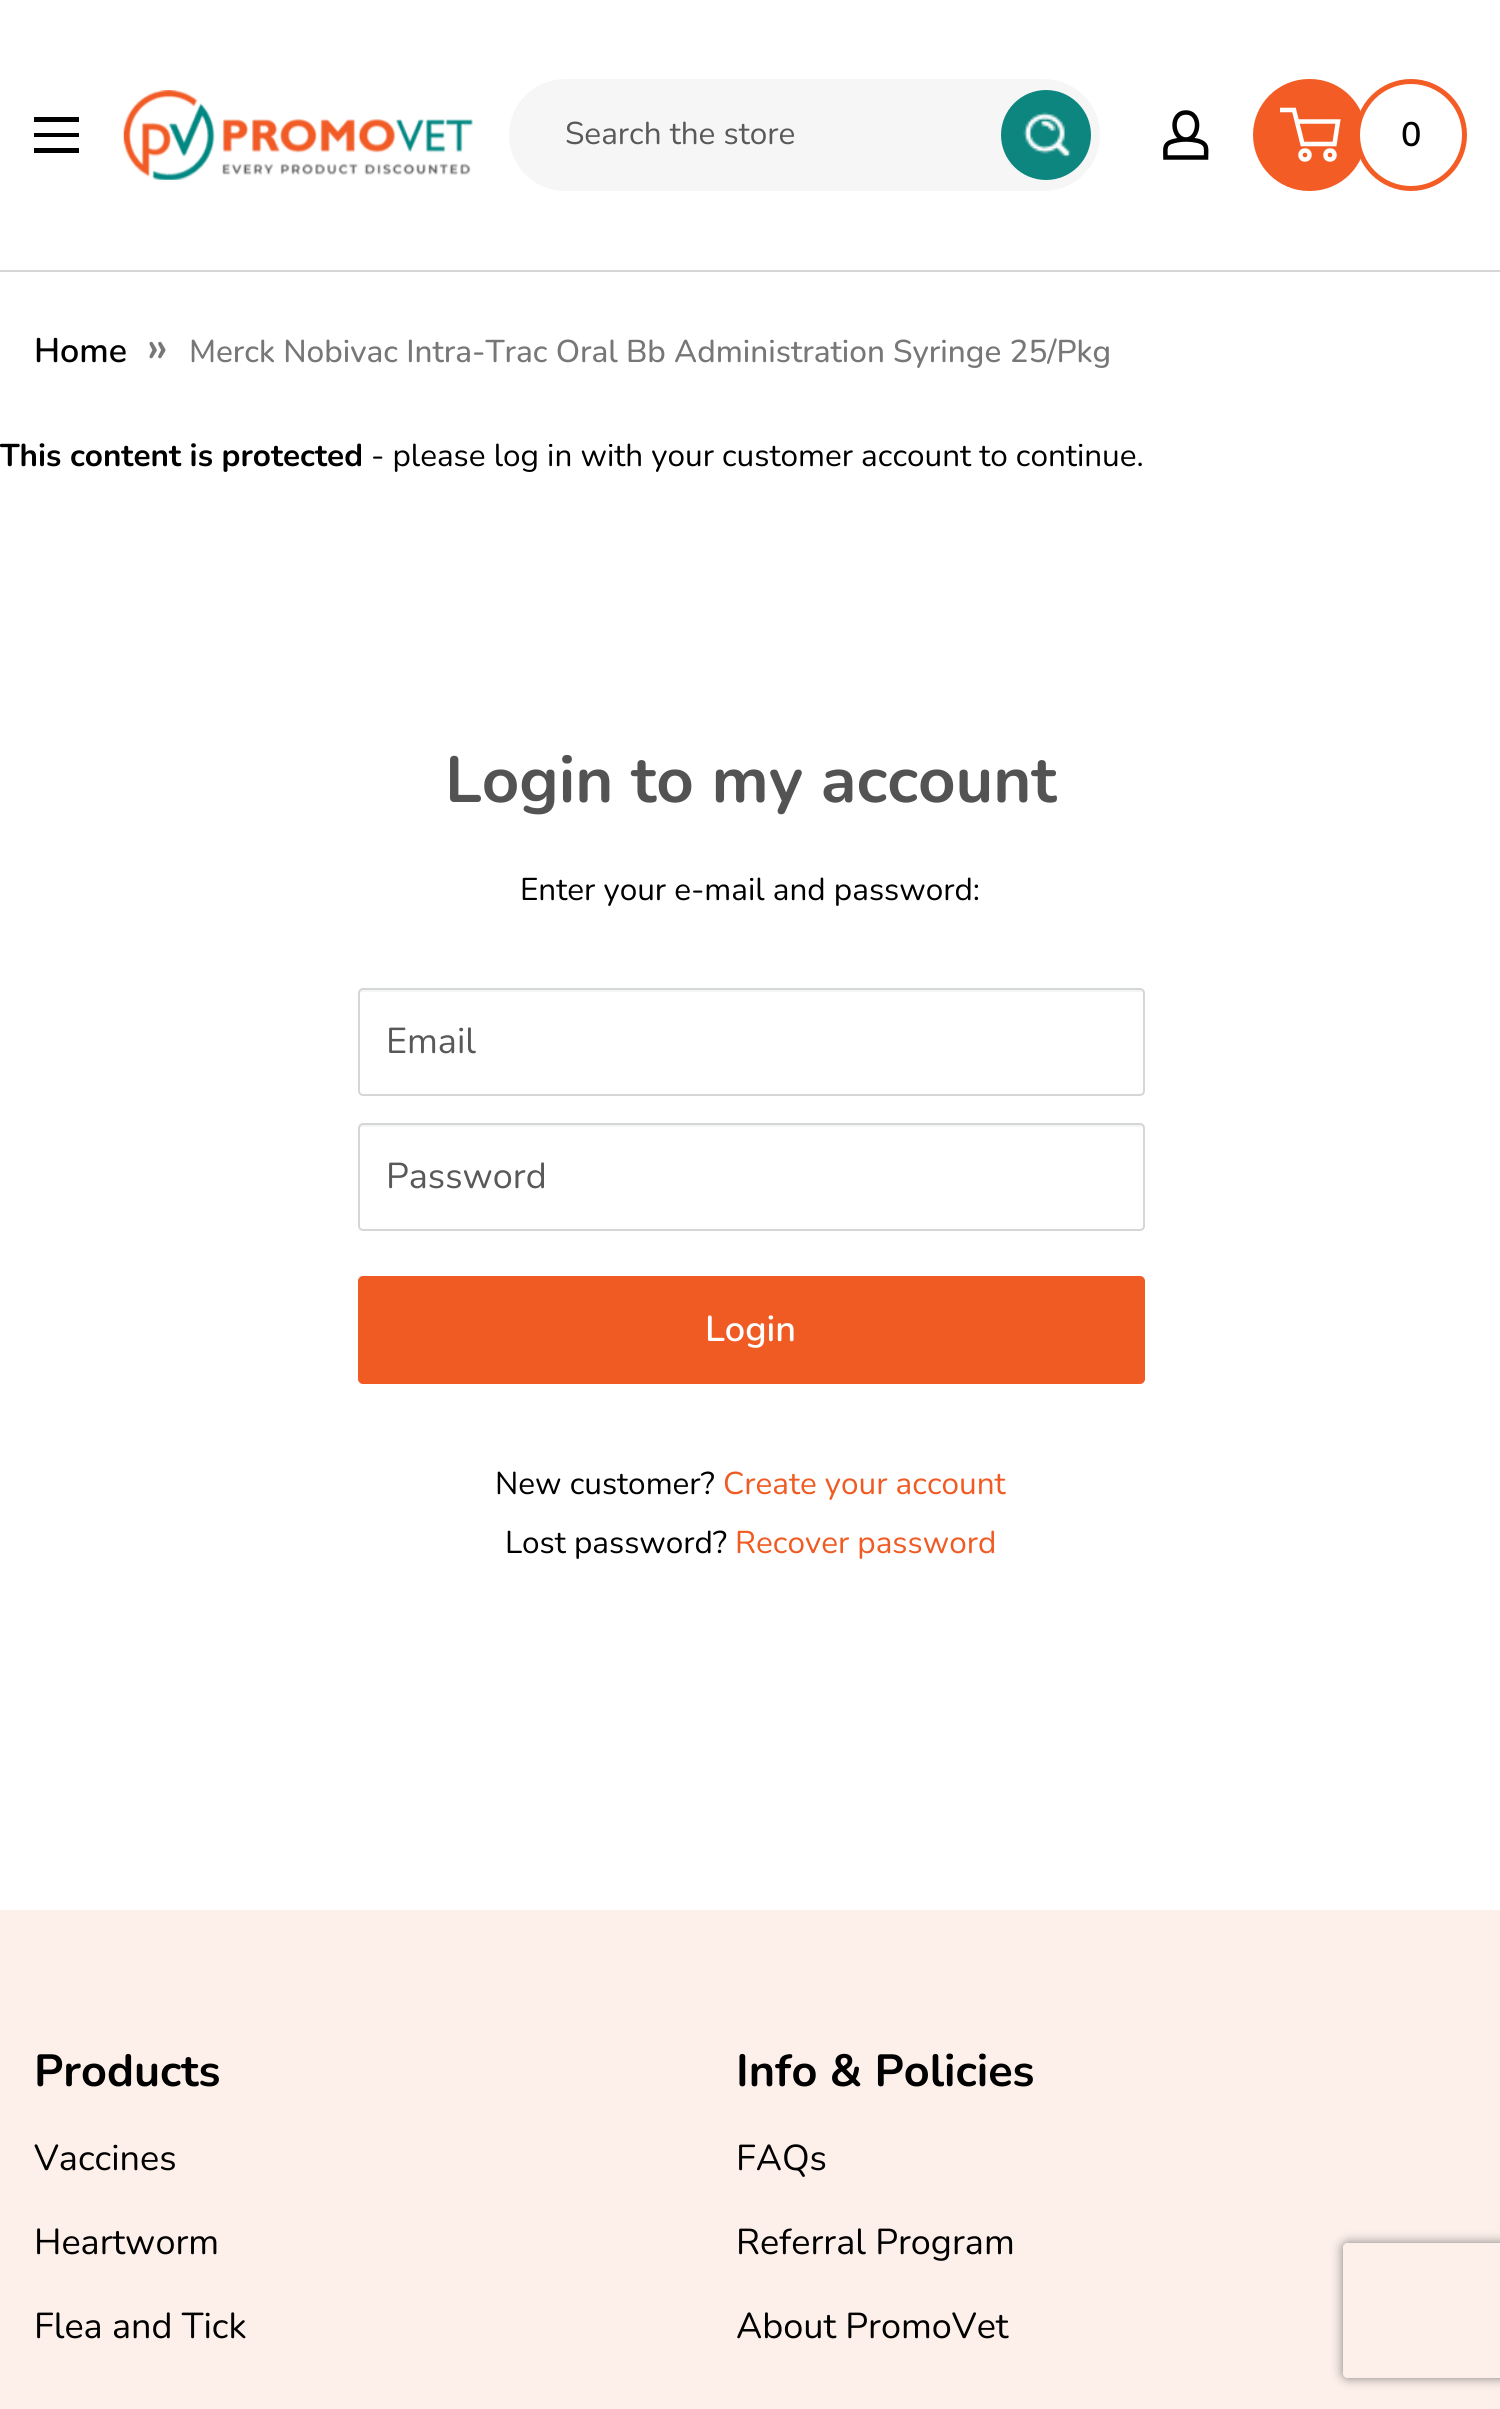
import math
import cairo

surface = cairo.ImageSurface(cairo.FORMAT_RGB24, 1500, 2409)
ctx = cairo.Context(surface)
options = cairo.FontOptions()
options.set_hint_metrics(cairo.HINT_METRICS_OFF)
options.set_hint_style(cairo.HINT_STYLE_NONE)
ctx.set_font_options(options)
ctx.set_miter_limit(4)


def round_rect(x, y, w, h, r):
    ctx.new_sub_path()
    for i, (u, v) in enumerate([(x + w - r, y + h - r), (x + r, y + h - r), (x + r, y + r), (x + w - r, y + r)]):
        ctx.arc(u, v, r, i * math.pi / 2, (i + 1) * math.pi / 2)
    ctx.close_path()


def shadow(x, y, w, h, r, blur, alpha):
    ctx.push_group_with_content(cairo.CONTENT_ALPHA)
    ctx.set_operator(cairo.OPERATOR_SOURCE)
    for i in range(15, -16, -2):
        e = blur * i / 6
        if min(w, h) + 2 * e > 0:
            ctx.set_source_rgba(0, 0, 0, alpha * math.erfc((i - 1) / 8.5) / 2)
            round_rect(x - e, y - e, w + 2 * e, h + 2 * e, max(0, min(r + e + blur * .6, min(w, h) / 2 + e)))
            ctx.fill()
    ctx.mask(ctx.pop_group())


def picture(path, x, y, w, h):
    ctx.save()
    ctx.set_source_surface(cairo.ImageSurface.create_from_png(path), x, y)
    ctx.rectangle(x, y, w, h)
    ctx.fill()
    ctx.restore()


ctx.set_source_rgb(1, 1, 1)
ctx.paint()
ctx.set_source_rgb(0.839, 0.839, 0.839)
ctx.rectangle(0, 270, 1500, 2)
ctx.fill()
ctx.set_source_rgb(0, 0, 0)
ctx.set_fill_rule(cairo.FILL_RULE_EVEN_ODD)
ctx.new_path()
ctx.move_to(34, 148)
ctx.line_to(79, 148)
ctx.line_to(79, 153)
ctx.line_to(34, 153)
ctx.close_path()
ctx.move_to(34, 117)
ctx.line_to(79, 117)
ctx.line_to(79, 122)
ctx.line_to(34, 122)
ctx.close_path()
ctx.move_to(34, 133)
ctx.line_to(79, 133)
ctx.line_to(79, 137)
ctx.line_to(34, 137)
ctx.close_path()
ctx.fill()
picture("img1.png", 123, 90, 350, 90)
ctx.set_source_rgb(0.961, 0.961, 0.961)
round_rect(509, 79, 591, 112, 56)
ctx.fill()
ctx.select_font_face("Nunito")
ctx.set_font_size(31.5)
ctx.set_source_rgb(0.349, 0.349, 0.349)
ctx.move_to(565, 144)
ctx.show_text("Search the store")
ctx.set_source_rgb(0.047, 0.525, 0.498)
ctx.new_path()
ctx.arc(1046, 135, 45, 0, 2 * math.pi)
ctx.fill()
picture("img2.png", 1023, 112, 48, 46)
ctx.new_path()
ctx.move_to(1186, 139.5)
ctx.curve_to(1190, 139.5, 1194, 140, 1198.5, 141)
ctx.curve_to(1208, 144, 1206, 149, 1206, 157.5)
ctx.line_to(1165.5, 157.5)
ctx.curve_to(1165.5, 148.5, 1163.5, 143.5, 1174, 141)
ctx.curve_to(1178, 140, 1182, 139.5, 1186, 139.5)
ctx.close_path()
ctx.move_to(1186, 139.5)
ctx.curve_to(1172, 139.5, 1169.5, 112.5, 1186, 112.5)
ctx.curve_to(1202, 112.5, 1199.5, 139.5, 1186, 139.5)
ctx.close_path()
ctx.set_source_rgb(0, 0, 0)
ctx.set_line_width(4.5)
ctx.stroke()
ctx.set_source_rgb(0.953, 0.365, 0.145)
round_rect(1253, 79, 113, 112, 56)
ctx.fill()
ctx.arc(1305, 155, 4.5, 0, 2 * math.pi)
ctx.set_source_rgb(1, 1, 1)
ctx.stroke()
ctx.arc(1330, 155, 4.5, 0, 2 * math.pi)
ctx.stroke()
ctx.new_path()
ctx.move_to(1296.5, 121.5)
ctx.line_to(1338, 121.5)
ctx.line_to(1334.5, 144)
ctx.line_to(1302.5, 144)
ctx.line_to(1294, 110)
ctx.line_to(1280, 110)
ctx.stroke()
ctx.arc(1411, 135, 53.5, 0, 2 * math.pi)
ctx.fill_preserve()
ctx.set_source_rgb(0.953, 0.365, 0.145)
ctx.set_line_width(5)
ctx.stroke()
ctx.select_font_face("Nunito SemiBold")
ctx.set_font_size(34)
ctx.set_source_rgb(0, 0, 0)
ctx.move_to(1401, 146)
ctx.show_text("0")
ctx.move_to(34, 362)
ctx.show_text("Home")
ctx.set_font_size(45)
ctx.set_source_rgb(0.467, 0.467, 0.467)
ctx.move_to(147, 362)
ctx.show_text("»")
ctx.select_font_face("Nunito Medium")
ctx.set_font_size(31.5)
ctx.move_to(189, 362)
ctx.show_text("Merck Nobivac Intra-Trac Oral Bb Administration Syringe 25/Pkg")
ctx.select_font_face("Nunito", cairo.FONT_SLANT_NORMAL, cairo.FONT_WEIGHT_BOLD)
ctx.set_source_rgb(0, 0, 0)
ctx.move_to(0, 466)
ctx.show_text("This content is protected")
ctx.select_font_face("Nunito")
ctx.move_to(371, 466)
ctx.show_text("- please log in with your customer account to continue.")
ctx.select_font_face("Nunito", cairo.FONT_SLANT_NORMAL, cairo.FONT_WEIGHT_BOLD)
ctx.set_font_size(65.25)
ctx.set_source_rgb(0.325, 0.325, 0.325)
ctx.move_to(445, 802)
ctx.show_text("Login to my account")
ctx.select_font_face("Nunito")
ctx.set_font_size(31.5)
ctx.set_source_rgb(0, 0, 0)
ctx.move_to(520, 900)
ctx.show_text("Enter your e-mail and password:")
ctx.set_source_rgb(0.957, 0.961, 0.961)
ctx.set_fill_rule(cairo.FILL_RULE_WINDING)
ctx.new_path()
ctx.move_to(362, 992)
ctx.line_to(1141, 992)
ctx.curve_to(1142, 992, 1143, 993, 1143, 994)
ctx.curve_to(1143, 993, 1143, 991, 1142, 991)
ctx.line_to(1141, 990)
ctx.line_to(362, 990)
ctx.line_to(360, 991)
ctx.line_to(360, 994)
ctx.curve_to(360, 993, 361, 992, 362, 992)
ctx.close_path()
ctx.fill()
round_rect(359, 989, 785, 106, 4)
ctx.set_source_rgb(0.831, 0.839, 0.847)
ctx.set_line_width(2)
ctx.stroke()
ctx.set_font_size(36)
ctx.set_source_rgb(0.349, 0.349, 0.349)
ctx.move_to(386, 1053)
ctx.show_text("Email")
ctx.set_source_rgb(0.957, 0.961, 0.961)
ctx.new_path()
ctx.move_to(362, 1127)
ctx.line_to(1141, 1127)
ctx.curve_to(1142, 1127, 1143, 1128, 1143, 1130)
ctx.line_to(1143, 1126)
ctx.line_to(1142, 1125)
ctx.line_to(362, 1125)
ctx.curve_to(359, 1125, 360, 1128, 360, 1130)
ctx.curve_to(360, 1128, 361, 1127, 362, 1127)
ctx.close_path()
ctx.fill()
round_rect(359, 1124, 785, 106, 4)
ctx.set_source_rgb(0.831, 0.839, 0.847)
ctx.stroke()
ctx.set_source_rgb(0.349, 0.349, 0.349)
ctx.move_to(386, 1188)
ctx.show_text("Password")
ctx.set_source_rgb(0.941, 0.357, 0.141)
round_rect(358, 1276, 787, 108, 5)
ctx.fill()
ctx.select_font_face("Nunito SemiBold")
ctx.set_source_rgb(1, 1, 1)
ctx.move_to(705, 1341)
ctx.show_text("Login")
ctx.select_font_face("Nunito")
ctx.set_font_size(31.5)
ctx.set_source_rgb(0, 0, 0)
ctx.move_to(495, 1494)
ctx.show_text("New customer?")
ctx.set_source_rgb(0.941, 0.357, 0.141)
ctx.move_to(723, 1494)
ctx.show_text("Create your account")
ctx.set_source_rgb(0, 0, 0)
ctx.move_to(505, 1553)
ctx.show_text("Lost password?")
ctx.set_source_rgb(0.941, 0.357, 0.141)
ctx.move_to(735, 1553)
ctx.show_text("Recover password")
ctx.set_source_rgb(0.992, 0.937, 0.914)
ctx.rectangle(0, 1910, 1500, 499)
ctx.fill()
ctx.select_font_face("Nunito", cairo.FONT_SLANT_NORMAL, cairo.FONT_WEIGHT_BOLD)
ctx.set_font_size(45)
ctx.set_source_rgb(0, 0, 0)
ctx.move_to(34, 2086)
ctx.show_text("Products")
ctx.select_font_face("Nunito")
ctx.set_font_size(36)
ctx.move_to(34, 2170)
ctx.show_text("Vaccines")
ctx.move_to(34, 2254)
ctx.show_text("Heartworm")
ctx.move_to(34, 2338)
ctx.show_text("Flea and Tick")
ctx.select_font_face("Nunito", cairo.FONT_SLANT_NORMAL, cairo.FONT_WEIGHT_BOLD)
ctx.set_font_size(45)
ctx.move_to(736, 2086)
ctx.show_text("Info & Policies")
ctx.select_font_face("Nunito")
ctx.set_font_size(36)
ctx.move_to(736, 2170)
ctx.show_text("FAQs")
ctx.move_to(736, 2254)
ctx.show_text("Referral Program")
ctx.move_to(736, 2338)
ctx.show_text("About PromoVet")
ctx.save()
ctx.set_fill_rule(cairo.FILL_RULE_EVEN_ODD)
ctx.new_path()
ctx.move_to(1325, 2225)
ctx.line_to(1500, 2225)
ctx.line_to(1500, 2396)
ctx.line_to(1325, 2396)
ctx.close_path()
ctx.move_to(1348, 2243)
ctx.line_to(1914, 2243)
ctx.curve_to(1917, 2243, 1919, 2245, 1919, 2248)
ctx.line_to(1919, 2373)
ctx.curve_to(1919, 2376, 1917, 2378, 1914, 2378)
ctx.line_to(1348, 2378)
ctx.curve_to(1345, 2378, 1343, 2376, 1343, 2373)
ctx.line_to(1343, 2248)
ctx.curve_to(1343, 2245, 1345, 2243, 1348, 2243)
ctx.close_path()
ctx.clip()
ctx.set_source_rgb(0.502, 0.502, 0.502)
shadow(1343, 2243, 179, 135, 5, 5.5, 1)
ctx.restore()
surface.write_to_png("page.png")
